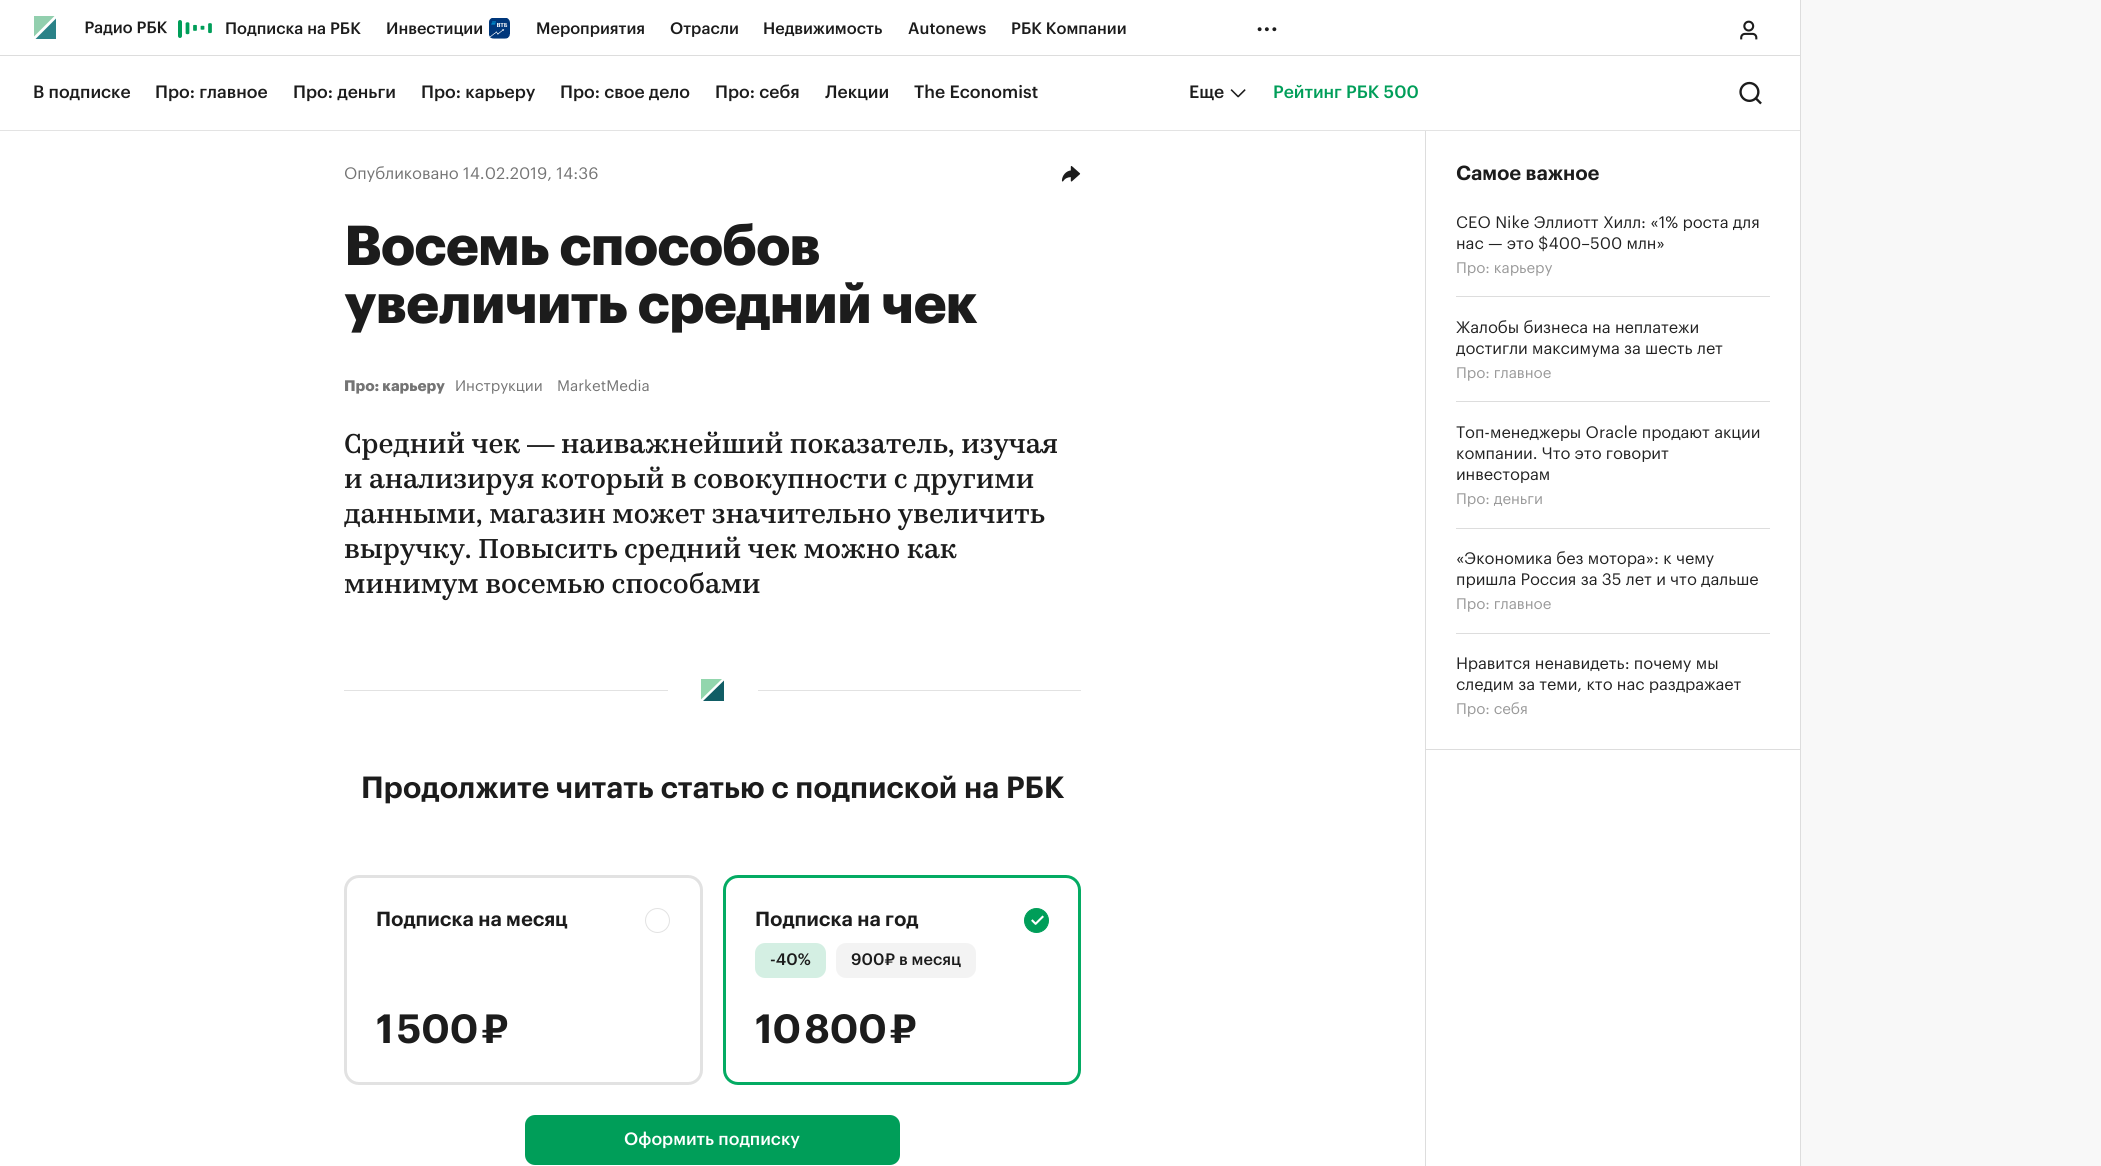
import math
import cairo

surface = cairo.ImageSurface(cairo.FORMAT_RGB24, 2101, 1166)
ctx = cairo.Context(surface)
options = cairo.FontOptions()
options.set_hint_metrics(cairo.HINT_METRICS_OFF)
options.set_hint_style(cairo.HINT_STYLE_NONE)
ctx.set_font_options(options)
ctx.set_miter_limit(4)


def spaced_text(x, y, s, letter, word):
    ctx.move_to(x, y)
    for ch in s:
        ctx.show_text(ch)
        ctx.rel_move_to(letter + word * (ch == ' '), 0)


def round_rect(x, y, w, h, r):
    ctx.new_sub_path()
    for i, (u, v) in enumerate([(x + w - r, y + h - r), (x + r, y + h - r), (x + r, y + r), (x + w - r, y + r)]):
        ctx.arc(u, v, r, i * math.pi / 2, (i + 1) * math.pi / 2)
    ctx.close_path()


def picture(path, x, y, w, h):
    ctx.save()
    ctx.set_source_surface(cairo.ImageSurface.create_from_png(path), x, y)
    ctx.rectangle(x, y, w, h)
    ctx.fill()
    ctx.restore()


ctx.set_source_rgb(0.969, 0.969, 0.969)
ctx.paint()
ctx.set_source_rgb(1, 1, 1)
ctx.rectangle(0, 0, 1800, 55)
ctx.fill()
ctx.set_source_rgb(0.867, 0.867, 0.867)
ctx.rectangle(0, 55, 1800, 1)
ctx.fill()
ctx.save()
ctx.rectangle(34, 16, 22, 23)
ctx.clip()
ctx.set_source_rgb(0.573, 0.812, 0.682)
ctx.set_fill_rule(cairo.FILL_RULE_EVEN_ODD)
ctx.new_path()
ctx.move_to(32.5, 15)
ctx.line_to(32.5, 38)
ctx.line_to(55.5, 15)
ctx.close_path()
ctx.fill()
ctx.set_source_rgb(0.165, 0.51, 0.533)
ctx.new_path()
ctx.move_to(34.5, 40)
ctx.line_to(57.5, 40)
ctx.line_to(57.5, 17)
ctx.close_path()
ctx.fill()
ctx.restore()
picture("img1.png", 85, 20, 127, 18)
ctx.select_font_face("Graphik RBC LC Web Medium")
ctx.set_font_size(16.25)
ctx.set_source_rgb(0.11, 0.11, 0.11)
ctx.move_to(225, 34)
ctx.show_text("Подписка на РБК")
ctx.move_to(386, 34)
ctx.show_text("Инвестиции")
picture("img2.png", 489, 18, 21, 21)
ctx.move_to(536, 34)
ctx.show_text("Мероприятия")
ctx.move_to(670, 34)
ctx.show_text("Отрасли")
ctx.move_to(763, 34)
ctx.show_text("Недвижимость")
ctx.move_to(908, 34)
ctx.show_text("Autonews")
ctx.move_to(1011, 34)
ctx.show_text("РБК Компании")
ctx.set_font_size(25)
ctx.move_to(1256, 31)
ctx.show_text("...")
picture("img3.png", 1740, 20, 18, 20)
ctx.set_source_rgb(1, 1, 1)
ctx.rectangle(0, 56, 1800, 1110)
ctx.fill()
ctx.set_source_rgb(0.89, 0.89, 0.89)
ctx.rectangle(0, 130, 1800, 1)
ctx.fill()
ctx.set_font_size(17.5)
ctx.set_source_rgb(0.11, 0.11, 0.11)
ctx.move_to(33, 98)
ctx.show_text("В подписке")
ctx.move_to(155, 98)
ctx.show_text("Про: главное")
ctx.move_to(293, 98)
ctx.show_text("Про: деньги")
ctx.move_to(421, 98)
ctx.show_text("Про: карьеру")
ctx.move_to(560, 98)
ctx.show_text("Про: свое дело")
ctx.move_to(715, 98)
ctx.show_text("Про: себя")
ctx.move_to(825, 98)
ctx.show_text("Лекции")
ctx.move_to(914, 98)
ctx.show_text("The Economist")
ctx.move_to(1189, 98)
ctx.show_text("Еще")
picture("img4.png", 1230, 89, 16, 9)
ctx.set_source_rgb(0, 0.62, 0.349)
ctx.move_to(1273, 98)
ctx.show_text("Рейтинг РБК 500")
picture("img5.png", 1739, 81, 23, 24)
ctx.set_source_rgb(0.867, 0.867, 0.867)
ctx.rectangle(1800, 0, 1, 1166)
ctx.fill()
ctx.select_font_face("Graphik RBC LC Web")
ctx.set_font_size(16.25)
ctx.set_source_rgb(0.455, 0.455, 0.455)
ctx.move_to(344, 179)
ctx.show_text("Опубликовано 14.02.2019, 14:36")
picture("img6.png", 1061, 166, 20, 16)
ctx.select_font_face("Graphik RBC LC Web", cairo.FONT_SLANT_NORMAL, cairo.FONT_WEIGHT_BOLD)
ctx.set_font_size(55)
ctx.set_source_rgb(0.11, 0.11, 0.11)
spaced_text(344, 265, "Восемь способов", -0.6, 0)
spaced_text(344, 323, "увеличить средний чек", -0.6, 0)
ctx.set_font_size(15)
ctx.set_source_rgb(0.455, 0.455, 0.455)
ctx.move_to(344, 391)
ctx.show_text("Про: карьеру")
ctx.select_font_face("Graphik RBC LC Web")
ctx.move_to(455, 391)
ctx.show_text("Инструкции")
ctx.move_to(557, 391)
ctx.show_text("MarketMedia")
ctx.select_font_face("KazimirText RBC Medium")
ctx.set_font_size(27.5)
ctx.set_source_rgb(0.11, 0.11, 0.11)
ctx.move_to(344, 453)
ctx.show_text("Средний чек")
ctx.select_font_face("Liberation Sans")
ctx.move_to(527, 453)
ctx.show_text("—")
ctx.select_font_face("KazimirText RBC Medium")
ctx.move_to(561, 453)
ctx.show_text("наиважнейший показатель, изучая")
ctx.move_to(344, 488)
ctx.show_text("и анализируя который в совокупности с другими")
ctx.move_to(344, 523)
ctx.show_text("данными, магазин может значительно увеличить")
ctx.move_to(344, 558)
ctx.show_text("выручку. Повысить средний чек можно как")
ctx.move_to(344, 593)
ctx.show_text("минимум восемью способами")
ctx.set_source_rgb(0.886, 0.886, 0.886)
ctx.rectangle(344, 690, 324, 1)
ctx.fill()
ctx.set_source_rgb(0.573, 0.839, 0.678)
ctx.new_path()
ctx.move_to(722, 679)
ctx.line_to(701, 679)
ctx.line_to(701, 699.5)
ctx.close_path()
ctx.fill()
ctx.set_source_rgb(0.067, 0.365, 0.396)
ctx.new_path()
ctx.move_to(703, 701)
ctx.line_to(724, 701)
ctx.line_to(724, 680.5)
ctx.close_path()
ctx.fill()
ctx.set_source_rgb(0.886, 0.886, 0.886)
ctx.rectangle(758, 690, 323, 1)
ctx.fill()
ctx.select_font_face("Graphik RBC LC Web SemiBold")
ctx.set_font_size(30)
ctx.set_source_rgb(0.11, 0.11, 0.11)
ctx.move_to(361, 798)
ctx.show_text("Продолжите читать статью с подпиской на РБК")
round_rect(345.5, 876.5, 356, 207, 13.5)
ctx.set_source_rgb(0.886, 0.886, 0.886)
ctx.set_line_width(3)
ctx.stroke()
ctx.set_font_size(20)
ctx.set_source_rgb(0.11, 0.11, 0.11)
ctx.move_to(376, 926)
ctx.show_text("Подписка на месяц")
ctx.new_path()
ctx.arc(657.5, 920.5, 12, 0, 2 * math.pi)
ctx.set_source_rgb(0.886, 0.886, 0.886)
ctx.set_line_width(1)
ctx.stroke()
ctx.set_font_size(40)
ctx.set_source_rgb(0.11, 0.11, 0.11)
spaced_text(376, 1043, "1 500 ₽", -0.5, 0)
round_rect(724.5, 876.5, 355, 207, 13.5)
ctx.set_source_rgb(0.016, 0.671, 0.388)
ctx.set_line_width(3)
ctx.stroke()
ctx.set_font_size(20)
ctx.set_source_rgb(0.11, 0.11, 0.11)
ctx.move_to(755, 926)
ctx.show_text("Подписка на год")
ctx.set_source_rgb(0, 0.62, 0.349)
ctx.new_path()
ctx.arc(1036.5, 920.5, 12, 0, 2 * math.pi)
ctx.fill_preserve()
ctx.set_line_width(1)
ctx.stroke()
picture("img7.png", 1031, 915, 13, 10)
ctx.set_source_rgb(0.831, 0.937, 0.89)
round_rect(755, 943, 71, 35, 10)
ctx.fill()
ctx.select_font_face("Graphik RBC LC Web Medium")
ctx.set_font_size(16.25)
ctx.set_source_rgb(0.11, 0.11, 0.11)
ctx.move_to(770, 965)
ctx.show_text("-40%")
ctx.set_source_rgb(0.953, 0.953, 0.953)
round_rect(836, 943, 140, 35, 10)
ctx.fill()
ctx.set_source_rgb(0.11, 0.11, 0.11)
ctx.move_to(851, 965)
ctx.show_text("900₽ в месяц")
ctx.select_font_face("Graphik RBC LC Web SemiBold")
ctx.set_font_size(40)
spaced_text(755, 1043, "10 800 ₽", -0.5, 0)
ctx.set_source_rgb(0, 0.62, 0.349)
round_rect(525, 1115, 375, 50, 10)
ctx.fill()
ctx.select_font_face("Graphik RBC LC Web Medium")
ctx.set_font_size(17.5)
ctx.set_source_rgb(1, 1, 1)
ctx.move_to(624, 1145)
ctx.show_text("Оформить подписку")
ctx.set_source_rgb(0.867, 0.867, 0.867)
ctx.rectangle(1425, 131, 1, 1035)
ctx.fill()
ctx.rectangle(1426, 749, 374, 1)
ctx.fill()
ctx.select_font_face("Graphik RBC LC Web SemiBold")
ctx.set_font_size(20)
ctx.set_source_rgb(0.11, 0.11, 0.11)
ctx.move_to(1456, 180)
ctx.show_text("Самое важное")
ctx.set_source_rgb(0.867, 0.867, 0.867)
ctx.rectangle(1456, 296, 314, 1)
ctx.fill()
ctx.select_font_face("Graphik RBC LC Web")
ctx.set_font_size(16.25)
ctx.set_source_rgb(0.133, 0.133, 0.133)
ctx.move_to(1456, 228)
ctx.show_text("CEO Nike Эллиотт Хилл: «1% роста для")
ctx.move_to(1456, 249)
ctx.show_text("нас — это $400–500 млн»")
ctx.set_font_size(15)
ctx.set_source_rgb(0.6, 0.6, 0.6)
ctx.move_to(1456, 273)
ctx.show_text("Про: карьеру")
ctx.set_source_rgb(0.867, 0.867, 0.867)
ctx.rectangle(1456, 401, 314, 1)
ctx.fill()
ctx.set_font_size(16.25)
ctx.set_source_rgb(0.133, 0.133, 0.133)
ctx.move_to(1456, 333)
ctx.show_text("Жалобы бизнеса на неплатежи")
ctx.move_to(1456, 354)
ctx.show_text("достигли максимума за шесть лет")
ctx.set_font_size(15)
ctx.set_source_rgb(0.6, 0.6, 0.6)
ctx.move_to(1456, 378)
ctx.show_text("Про: главное")
ctx.set_source_rgb(0.867, 0.867, 0.867)
ctx.rectangle(1456, 528, 314, 1)
ctx.fill()
ctx.set_font_size(16.25)
ctx.set_source_rgb(0.133, 0.133, 0.133)
ctx.move_to(1456, 438)
ctx.show_text("Топ-менеджеры Oracle продают акции")
ctx.move_to(1456, 459)
ctx.show_text("компании. Что это говорит")
ctx.move_to(1456, 480)
ctx.show_text("инвесторам")
ctx.set_font_size(15)
ctx.set_source_rgb(0.6, 0.6, 0.6)
ctx.move_to(1456, 504)
ctx.show_text("Про: деньги")
ctx.set_source_rgb(0.867, 0.867, 0.867)
ctx.rectangle(1456, 633, 314, 1)
ctx.fill()
ctx.set_font_size(16.25)
ctx.set_source_rgb(0.133, 0.133, 0.133)
ctx.move_to(1456, 564)
ctx.show_text("«Экономика без мотора»: к чему")
ctx.move_to(1456, 585)
ctx.show_text("пришла Россия за 35 лет и что дальше")
ctx.set_font_size(15)
ctx.set_source_rgb(0.6, 0.6, 0.6)
ctx.move_to(1456, 609)
ctx.show_text("Про: главное")
ctx.set_font_size(16.25)
ctx.set_source_rgb(0.133, 0.133, 0.133)
ctx.move_to(1456, 669)
ctx.show_text("Нравится ненавидеть: почему мы")
ctx.move_to(1456, 690)
ctx.show_text("следим за теми, кто нас раздражает")
ctx.set_font_size(15)
ctx.set_source_rgb(0.6, 0.6, 0.6)
ctx.move_to(1456, 714)
ctx.show_text("Про: себя")
surface.write_to_png("page.png")
